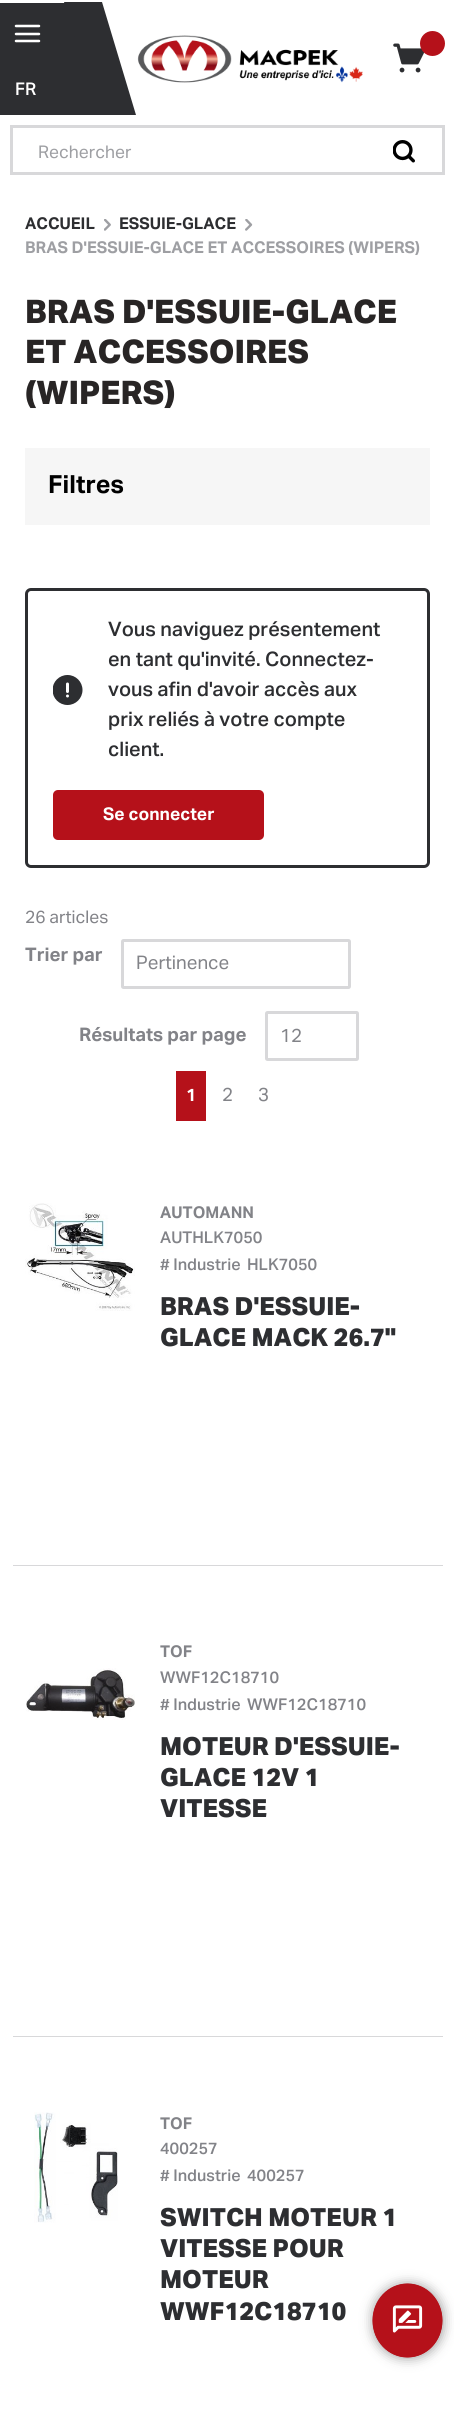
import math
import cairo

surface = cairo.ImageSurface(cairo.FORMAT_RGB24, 454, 2432)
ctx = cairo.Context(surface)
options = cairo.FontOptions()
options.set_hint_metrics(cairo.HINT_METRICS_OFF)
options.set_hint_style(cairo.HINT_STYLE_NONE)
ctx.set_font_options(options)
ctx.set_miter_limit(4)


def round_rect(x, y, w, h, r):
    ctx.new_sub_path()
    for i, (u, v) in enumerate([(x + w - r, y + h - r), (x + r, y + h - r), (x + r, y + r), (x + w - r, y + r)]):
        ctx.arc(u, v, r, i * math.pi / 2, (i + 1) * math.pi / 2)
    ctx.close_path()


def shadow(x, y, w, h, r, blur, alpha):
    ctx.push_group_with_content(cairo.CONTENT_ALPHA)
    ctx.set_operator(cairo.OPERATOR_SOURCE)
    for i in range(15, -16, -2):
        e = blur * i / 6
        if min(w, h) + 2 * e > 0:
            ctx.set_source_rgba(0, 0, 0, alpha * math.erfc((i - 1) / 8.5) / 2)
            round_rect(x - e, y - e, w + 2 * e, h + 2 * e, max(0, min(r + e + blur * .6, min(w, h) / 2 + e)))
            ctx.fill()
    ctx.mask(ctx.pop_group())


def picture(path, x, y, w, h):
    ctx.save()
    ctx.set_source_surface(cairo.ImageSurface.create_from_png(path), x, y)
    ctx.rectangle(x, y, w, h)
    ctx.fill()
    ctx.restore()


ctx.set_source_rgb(1, 1, 1)
ctx.paint()
picture("img1.png", 137, 35, 226, 48)
picture("img2.png", 393, 43, 32, 30)
ctx.set_source_rgb(0.71, 0.067, 0.102)
ctx.arc(432.5, 43.5, 12.5, 0, 2 * math.pi)
ctx.fill()
ctx.set_source_rgb(0.176, 0.18, 0.192)
ctx.rectangle(0, 3, 98, 112)
ctx.fill()
ctx.new_path()
ctx.move_to(16, 34)
ctx.line_to(39, 34)
ctx.move_to(16, 26)
ctx.line_to(39, 26)
ctx.move_to(16, 41)
ctx.line_to(39, 41)
ctx.set_source_rgb(1, 1, 1)
ctx.set_line_width(2.5)
ctx.set_line_cap(cairo.LINE_CAP_ROUND)
ctx.set_line_join(cairo.LINE_JOIN_ROUND)
ctx.stroke()
ctx.select_font_face("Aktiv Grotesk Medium")
ctx.set_font_size(17.5)
ctx.move_to(15, 95)
ctx.show_text("FR")
ctx.set_source_rgb(0.176, 0.18, 0.192)
ctx.new_path()
ctx.move_to(64, 2)
ctx.line_to(102, 2)
ctx.line_to(136, 115)
ctx.line_to(98, 115)
ctx.close_path()
ctx.fill()
ctx.rectangle(11.5, 126.5, 432, 47)
ctx.set_source_rgb(0.847, 0.847, 0.855)
ctx.set_line_width(3)
ctx.set_line_cap(cairo.LINE_CAP_BUTT)
ctx.set_line_join(cairo.LINE_JOIN_MITER)
ctx.stroke()
ctx.select_font_face("Aktiv Grotesk")
ctx.set_source_rgb(0.62, 0.624, 0.639)
ctx.move_to(38, 158)
ctx.show_text("Rechercher")
picture("img3.png", 393, 140, 22, 23)
ctx.select_font_face("Aktiv Grotesk", cairo.FONT_SLANT_NORMAL, cairo.FONT_WEIGHT_BOLD)
ctx.set_font_size(16.25)
ctx.set_source_rgb(0.176, 0.18, 0.192)
ctx.move_to(25, 229)
ctx.show_text("ACCUEIL")
picture("img4.png", 104, 219, 7, 12)
ctx.move_to(119, 229)
ctx.show_text("ESSUIE-GLACE")
picture("img5.png", 245, 219, 8, 12)
ctx.set_source_rgb(0.62, 0.624, 0.639)
ctx.move_to(25, 253)
ctx.show_text("BRAS D'ESSUIE-GLACE ET ACCESSOIRES (WIPERS)")
ctx.select_font_face("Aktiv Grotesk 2", cairo.FONT_SLANT_NORMAL, cairo.FONT_WEIGHT_BOLD)
ctx.set_font_size(32.5)
ctx.set_source_rgb(0.157, 0.145, 0.145)
ctx.move_to(25, 323)
ctx.show_text("BRAS D'ESSUIE-GLACE")
ctx.move_to(25, 363)
ctx.show_text("ET ACCESSOIRES")
ctx.move_to(25, 404)
ctx.show_text("(WIPERS)")
ctx.set_source_rgb(0.961, 0.961, 0.961)
ctx.rectangle(25, 448, 405, 77)
ctx.fill()
ctx.select_font_face("Aktiv Grotesk", cairo.FONT_SLANT_NORMAL, cairo.FONT_WEIGHT_BOLD)
ctx.set_font_size(25)
ctx.set_source_rgb(0, 0, 0)
ctx.move_to(48, 493)
ctx.show_text("Filtres")
round_rect(26.5, 589.5, 402, 277, 4.5)
ctx.set_source_rgb(0.176, 0.18, 0.192)
ctx.stroke()
picture("img6.png", 53, 675, 30, 30)
ctx.select_font_face("Aktiv Grotesk Medium")
ctx.set_font_size(20)
ctx.move_to(108, 636)
ctx.show_text("Vous naviguez présentement")
ctx.move_to(108, 666)
ctx.show_text("en tant qu'invité. Connectez-")
ctx.move_to(108, 696)
ctx.show_text("vous afin d'avoir accès aux")
ctx.move_to(108, 726)
ctx.show_text("prix reliés à votre compte")
ctx.move_to(108, 756)
ctx.show_text("client.")
ctx.set_source_rgb(0.71, 0.067, 0.102)
round_rect(53, 790, 211, 50, 5)
ctx.fill()
ctx.select_font_face("Aktiv Grotesk", cairo.FONT_SLANT_NORMAL, cairo.FONT_WEIGHT_BOLD)
ctx.set_font_size(17.5)
ctx.set_source_rgb(1, 1, 1)
ctx.move_to(103, 820)
ctx.show_text("Se connecter")
ctx.select_font_face("Aktiv Grotesk")
ctx.set_source_rgb(0.51, 0.514, 0.533)
ctx.move_to(25, 923)
ctx.show_text("26 articles")
ctx.select_font_face("Aktiv Grotesk", cairo.FONT_SLANT_NORMAL, cairo.FONT_WEIGHT_BOLD)
ctx.set_font_size(18.75)
ctx.move_to(25, 961)
ctx.show_text("Trier par")
round_rect(122.5, 940.5, 227, 47, 1)
ctx.set_source_rgb(0.847, 0.847, 0.855)
ctx.stroke()
ctx.select_font_face("Aktiv Grotesk")
ctx.set_source_rgb(0.51, 0.514, 0.533)
ctx.move_to(136, 969)
ctx.show_text("Pertinence")
ctx.select_font_face("Aktiv Grotesk", cairo.FONT_SLANT_NORMAL, cairo.FONT_WEIGHT_BOLD)
ctx.move_to(79, 1041)
ctx.show_text("Résultats par page")
round_rect(266.5, 1012.5, 91, 47, 1)
ctx.set_source_rgb(0.847, 0.847, 0.855)
ctx.stroke()
ctx.select_font_face("Aktiv Grotesk")
ctx.set_source_rgb(0.51, 0.514, 0.533)
ctx.move_to(280, 1042)
ctx.show_text("12")
ctx.set_source_rgb(0.71, 0.067, 0.102)
ctx.rectangle(176, 1071, 30, 50)
ctx.fill()
ctx.select_font_face("Aktiv Grotesk", cairo.FONT_SLANT_NORMAL, cairo.FONT_WEIGHT_BOLD)
ctx.set_font_size(17.5)
ctx.set_source_rgb(1, 1, 1)
ctx.move_to(186, 1101)
ctx.show_text("1")
ctx.select_font_face("Aktiv Grotesk")
ctx.set_font_size(18.75)
ctx.set_source_rgb(0.51, 0.514, 0.533)
ctx.move_to(222, 1101)
ctx.show_text("2")
ctx.move_to(258, 1101)
ctx.show_text("3")
ctx.set_source_rgb(0.847, 0.847, 0.855)
ctx.rectangle(13, 1565, 430, 1)
ctx.fill()
picture("img7.png", 25, 1203, 110, 108)
ctx.select_font_face("Aktiv Grotesk", cairo.FONT_SLANT_NORMAL, cairo.FONT_WEIGHT_BOLD)
ctx.set_font_size(16.25)
ctx.set_source_rgb(0.51, 0.514, 0.533)
ctx.move_to(160, 1218)
ctx.show_text("AUTOMANN")
ctx.select_font_face("Aktiv Grotesk Medium")
ctx.move_to(160, 1243)
ctx.show_text("AUTHLK7050")
ctx.move_to(160, 1270)
ctx.show_text("# Industrie")
ctx.move_to(247, 1270)
ctx.show_text("HLK7050")
ctx.select_font_face("Aktiv Grotesk 2", cairo.FONT_SLANT_NORMAL, cairo.FONT_WEIGHT_BOLD)
ctx.set_font_size(25)
ctx.set_source_rgb(0.176, 0.18, 0.192)
ctx.move_to(160, 1315)
ctx.show_text("BRAS D'ESSUIE-")
ctx.move_to(160, 1346)
ctx.show_text("GLACE MACK 26.7\"")
ctx.set_source_rgb(0.847, 0.847, 0.855)
ctx.rectangle(13, 2036, 430, 1)
ctx.fill()
picture("img8.png", 26, 1668, 109, 52)
ctx.select_font_face("Aktiv Grotesk", cairo.FONT_SLANT_NORMAL, cairo.FONT_WEIGHT_BOLD)
ctx.set_font_size(16.25)
ctx.set_source_rgb(0.51, 0.514, 0.533)
ctx.move_to(160, 1657)
ctx.show_text("TOF")
ctx.select_font_face("Aktiv Grotesk Medium")
ctx.move_to(160, 1683)
ctx.show_text("WWF12C18710")
ctx.move_to(160, 1710)
ctx.show_text("# Industrie")
ctx.move_to(247, 1710)
ctx.show_text("WWF12C18710")
ctx.select_font_face("Aktiv Grotesk 2", cairo.FONT_SLANT_NORMAL, cairo.FONT_WEIGHT_BOLD)
ctx.set_font_size(25)
ctx.set_source_rgb(0.176, 0.18, 0.192)
ctx.move_to(160, 1755)
ctx.show_text("MOTEUR D'ESSUIE-")
ctx.move_to(160, 1786)
ctx.show_text("GLACE 12V 1")
ctx.move_to(160, 1817)
ctx.show_text("VITESSE")
picture("img9.png", 34, 2112, 84, 111)
ctx.select_font_face("Aktiv Grotesk", cairo.FONT_SLANT_NORMAL, cairo.FONT_WEIGHT_BOLD)
ctx.set_font_size(16.25)
ctx.set_source_rgb(0.51, 0.514, 0.533)
ctx.move_to(160, 2129)
ctx.show_text("TOF")
ctx.select_font_face("Aktiv Grotesk Medium")
ctx.move_to(160, 2154)
ctx.show_text("400257")
ctx.move_to(160, 2181)
ctx.show_text("# Industrie")
ctx.move_to(247, 2181)
ctx.show_text("400257")
ctx.select_font_face("Aktiv Grotesk 2", cairo.FONT_SLANT_NORMAL, cairo.FONT_WEIGHT_BOLD)
ctx.set_font_size(25)
ctx.set_source_rgb(0.176, 0.18, 0.192)
ctx.move_to(160, 2226)
ctx.show_text("SWITCH MOTEUR 1")
ctx.move_to(160, 2257)
ctx.show_text("VITESSE POUR")
ctx.move_to(160, 2288)
ctx.show_text("MOTEUR")
ctx.move_to(160, 2320)
ctx.show_text("WWF12C18710")
ctx.set_source_rgb(0, 0, 0)
shadow(373, 2284, 70, 74, 35, 6, 0.4)
ctx.set_source_rgb(0.71, 0.067, 0.102)
ctx.new_path()
ctx.move_to(407.5, 2283.5)
ctx.curve_to(427, 2283.5, 442.5, 2300, 442.5, 2320.5)
ctx.curve_to(442.5, 2341, 427, 2357.5, 407.5, 2357.5)
ctx.curve_to(388, 2357.5, 372.5, 2341, 372.5, 2320.5)
ctx.curve_to(372.5, 2300, 388, 2283.5, 407.5, 2283.5)
ctx.close_path()
ctx.fill()
ctx.new_path()
ctx.move_to(407.5, 2285)
ctx.curve_to(426, 2285, 441, 2301, 441, 2320.5)
ctx.curve_to(441, 2340.5, 426, 2356, 407.5, 2356)
ctx.curve_to(389, 2356, 374, 2340.5, 374, 2320.5)
ctx.curve_to(374, 2301, 389, 2285, 407.5, 2285)
ctx.close_path()
ctx.set_line_width(2.5)
ctx.stroke()
picture("img10.png", 392, 2305, 31, 28)
surface.write_to_png("page.png")
